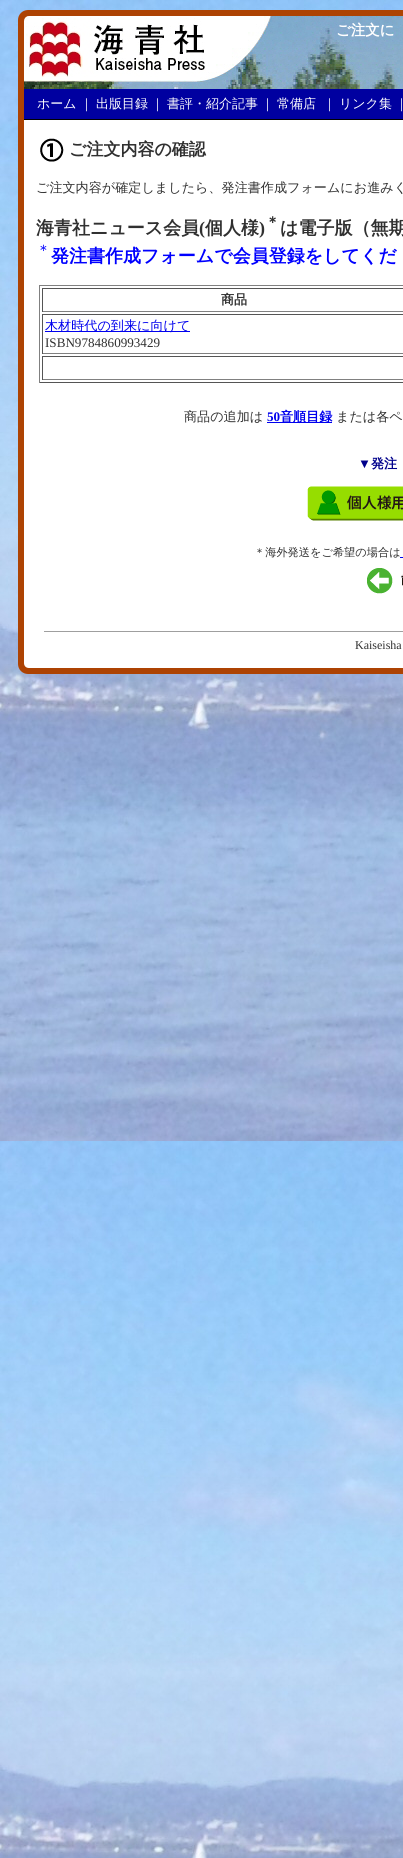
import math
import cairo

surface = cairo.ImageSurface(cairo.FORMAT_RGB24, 403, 1858)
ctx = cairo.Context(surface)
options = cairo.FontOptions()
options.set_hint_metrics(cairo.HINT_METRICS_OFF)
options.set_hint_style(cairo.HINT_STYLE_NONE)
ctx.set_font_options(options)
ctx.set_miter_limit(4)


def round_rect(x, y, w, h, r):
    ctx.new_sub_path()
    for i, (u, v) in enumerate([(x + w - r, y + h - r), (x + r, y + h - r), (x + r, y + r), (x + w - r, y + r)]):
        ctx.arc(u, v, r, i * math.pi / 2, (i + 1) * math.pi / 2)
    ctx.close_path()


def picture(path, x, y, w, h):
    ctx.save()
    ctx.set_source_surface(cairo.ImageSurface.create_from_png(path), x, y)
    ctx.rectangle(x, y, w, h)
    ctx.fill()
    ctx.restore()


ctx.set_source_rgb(1, 1, 1)
ctx.paint()
picture("img1.png", 0, 0, 403, 1858)
ctx.set_source_rgb(0.678, 0.263, 0.012)
round_rect(18, 10, 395, 664, 10)
ctx.fill()
picture("img2.png", 24, 16, 379, 73)
picture("img3.png", 26, 18, 179, 59)
ctx.select_font_face("WenQuanYi Zen Hei", cairo.FONT_SLANT_NORMAL, cairo.FONT_WEIGHT_BOLD)
ctx.set_font_size(14.5)
ctx.set_source_rgb(1, 1, 1)
ctx.move_to(336, 35)
ctx.show_text("ご注文に")
ctx.set_source_rgb(0, 0, 0.627)
ctx.rectangle(24, 89, 379, 30)
ctx.fill()
ctx.set_source_rgb(0, 0, 0)
ctx.rectangle(24, 119, 379, 1)
ctx.fill()
ctx.select_font_face("WenQuanYi Zen Hei Medium")
ctx.set_font_size(13)
ctx.set_source_rgb(1, 1, 1)
ctx.move_to(37, 108)
ctx.show_text("ホーム")
ctx.move_to(80, 108)
ctx.show_text("｜")
ctx.move_to(96, 108)
ctx.show_text("出版目録")
ctx.move_to(151, 108)
ctx.show_text("｜")
ctx.move_to(167, 108)
ctx.show_text("書評・紹介記事")
ctx.move_to(261, 108)
ctx.show_text("｜")
ctx.move_to(277, 108)
ctx.show_text("常備店")
ctx.move_to(323, 108)
ctx.show_text("｜")
ctx.move_to(339, 108)
ctx.show_text("リンク集")
ctx.move_to(395, 108)
ctx.show_text("｜")
ctx.new_path()
ctx.move_to(24, 120)
ctx.line_to(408, 120)
ctx.line_to(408, 663)
ctx.curve_to(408, 666, 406, 668, 403, 668)
ctx.line_to(29, 668)
ctx.curve_to(26, 668, 24, 666, 24, 663)
ctx.close_path()
ctx.fill()
picture("img4.png", 40, 138, 24, 24)
ctx.select_font_face("WenQuanYi Zen Hei", cairo.FONT_SLANT_NORMAL, cairo.FONT_WEIGHT_BOLD)
ctx.set_font_size(17)
ctx.set_source_rgb(0.188, 0.188, 0.188)
ctx.move_to(69, 155)
ctx.show_text("ご注文内容の確認")
ctx.select_font_face("WenQuanYi Zen Hei Medium")
ctx.set_font_size(13.1)
ctx.move_to(36, 192)
ctx.show_text("ご注文内容が確定しましたら、発注書作成フォームにお進みく")
ctx.select_font_face("WenQuanYi Zen Hei", cairo.FONT_SLANT_NORMAL, cairo.FONT_WEIGHT_BOLD)
ctx.set_font_size(18)
ctx.move_to(36, 234)
ctx.show_text("海青社ニュース会員")
ctx.select_font_face("Liberation Serif", cairo.FONT_SLANT_NORMAL, cairo.FONT_WEIGHT_BOLD)
ctx.move_to(199, 234)
ctx.show_text("(")
ctx.select_font_face("WenQuanYi Zen Hei", cairo.FONT_SLANT_NORMAL, cairo.FONT_WEIGHT_BOLD)
ctx.move_to(205, 234)
ctx.show_text("個人様")
ctx.select_font_face("Liberation Serif", cairo.FONT_SLANT_NORMAL, cairo.FONT_WEIGHT_BOLD)
ctx.move_to(259, 234)
ctx.show_text(")")
ctx.select_font_face("WenQuanYi Zen Hei", cairo.FONT_SLANT_NORMAL, cairo.FONT_WEIGHT_BOLD)
ctx.set_font_size(15)
ctx.move_to(265, 227)
ctx.show_text("＊")
ctx.set_font_size(18)
ctx.move_to(280, 234)
ctx.show_text("は電子版（無期")
ctx.select_font_face("WenQuanYi Zen Hei Medium")
ctx.set_font_size(15)
ctx.set_source_rgb(0, 0, 1)
ctx.move_to(36, 255)
ctx.show_text("＊")
ctx.select_font_face("WenQuanYi Zen Hei", cairo.FONT_SLANT_NORMAL, cairo.FONT_WEIGHT_BOLD)
ctx.set_font_size(18)
ctx.move_to(51, 262)
ctx.show_text("発注書作成フォームで会員登録をしてくだ")
ctx.set_source_rgb(0.502, 0.502, 0.502)
ctx.rectangle(39, 285, 364, 1)
ctx.fill()
ctx.set_source_rgb(0.333, 0.333, 0.333)
ctx.rectangle(39, 382, 364, 1)
ctx.fill()
ctx.set_source_rgb(0.502, 0.502, 0.502)
ctx.rectangle(39, 285, 1, 98)
ctx.fill()
ctx.set_source_rgb(0.333, 0.333, 0.333)
ctx.rectangle(42, 288, 361, 1)
ctx.fill()
ctx.set_source_rgb(0.502, 0.502, 0.502)
ctx.rectangle(42, 311, 361, 1)
ctx.fill()
ctx.set_source_rgb(0.333, 0.333, 0.333)
ctx.rectangle(42, 288, 1, 24)
ctx.fill()
ctx.set_font_size(13.1)
ctx.set_source_rgb(0.188, 0.188, 0.188)
ctx.move_to(221, 304)
ctx.show_text("商品")
ctx.set_source_rgb(0.333, 0.333, 0.333)
ctx.rectangle(42, 314, 361, 1)
ctx.fill()
ctx.set_source_rgb(0.502, 0.502, 0.502)
ctx.rectangle(42, 353, 361, 1)
ctx.fill()
ctx.set_source_rgb(0.333, 0.333, 0.333)
ctx.rectangle(42, 314, 1, 40)
ctx.fill()
ctx.set_source_rgb(0, 0, 0.933)
ctx.rectangle(45, 331, 145, 1)
ctx.fill()
ctx.select_font_face("WenQuanYi Zen Hei Medium")
ctx.move_to(45, 330)
ctx.show_text("木材時代の到来に向けて")
ctx.select_font_face("Liberation Serif")
ctx.set_source_rgb(0.188, 0.188, 0.188)
ctx.move_to(45, 347)
ctx.show_text("ISBN9784860993429")
ctx.set_source_rgb(0.333, 0.333, 0.333)
ctx.rectangle(42, 356, 361, 1)
ctx.fill()
ctx.set_source_rgb(0.502, 0.502, 0.502)
ctx.rectangle(42, 379, 361, 1)
ctx.fill()
ctx.set_source_rgb(0.333, 0.333, 0.333)
ctx.rectangle(42, 356, 1, 24)
ctx.fill()
ctx.select_font_face("WenQuanYi Zen Hei Medium")
ctx.set_source_rgb(0.188, 0.188, 0.188)
ctx.move_to(184, 421)
ctx.show_text("商品の追加は")
ctx.select_font_face("Liberation Serif", cairo.FONT_SLANT_NORMAL, cairo.FONT_WEIGHT_BOLD)
ctx.set_source_rgb(0, 0, 0.933)
ctx.move_to(267, 421)
ctx.show_text("50")
ctx.rectangle(267, 422, 65, 1)
ctx.fill()
ctx.select_font_face("WenQuanYi Zen Hei", cairo.FONT_SLANT_NORMAL, cairo.FONT_WEIGHT_BOLD)
ctx.move_to(280, 421)
ctx.show_text("音順目録")
ctx.select_font_face("WenQuanYi Zen Hei Medium")
ctx.set_source_rgb(0.188, 0.188, 0.188)
ctx.move_to(336, 421)
ctx.show_text("または各ペ")
ctx.select_font_face("Liberation Serif", cairo.FONT_SLANT_NORMAL, cairo.FONT_WEIGHT_BOLD)
ctx.set_source_rgb(0, 0, 0.545)
ctx.move_to(358, 468)
ctx.show_text("▼")
ctx.select_font_face("WenQuanYi Zen Hei", cairo.FONT_SLANT_NORMAL, cairo.FONT_WEIGHT_BOLD)
ctx.move_to(371, 468)
ctx.show_text("発注")
picture("img5.png", 307, 486, 96, 35)
ctx.select_font_face("WenQuanYi Zen Hei Medium")
ctx.set_font_size(11.2)
ctx.set_source_rgb(0.188, 0.188, 0.188)
ctx.move_to(254, 556)
ctx.show_text("＊海外発送をご希望の場合は")
ctx.set_source_rgb(0, 0, 0.933)
ctx.rectangle(400, 557, 3, 1)
ctx.fill()
picture("img6.png", 367, 568, 36, 26)
ctx.set_source_rgb(0.624, 0.624, 0.624)
ctx.rectangle(44, 631, 359, 1)
ctx.fill()
ctx.select_font_face("Liberation Serif")
ctx.set_font_size(12)
ctx.set_source_rgb(0.188, 0.188, 0.188)
ctx.move_to(355, 649)
ctx.show_text("Kaiseisha")
surface.write_to_png("page.png")
